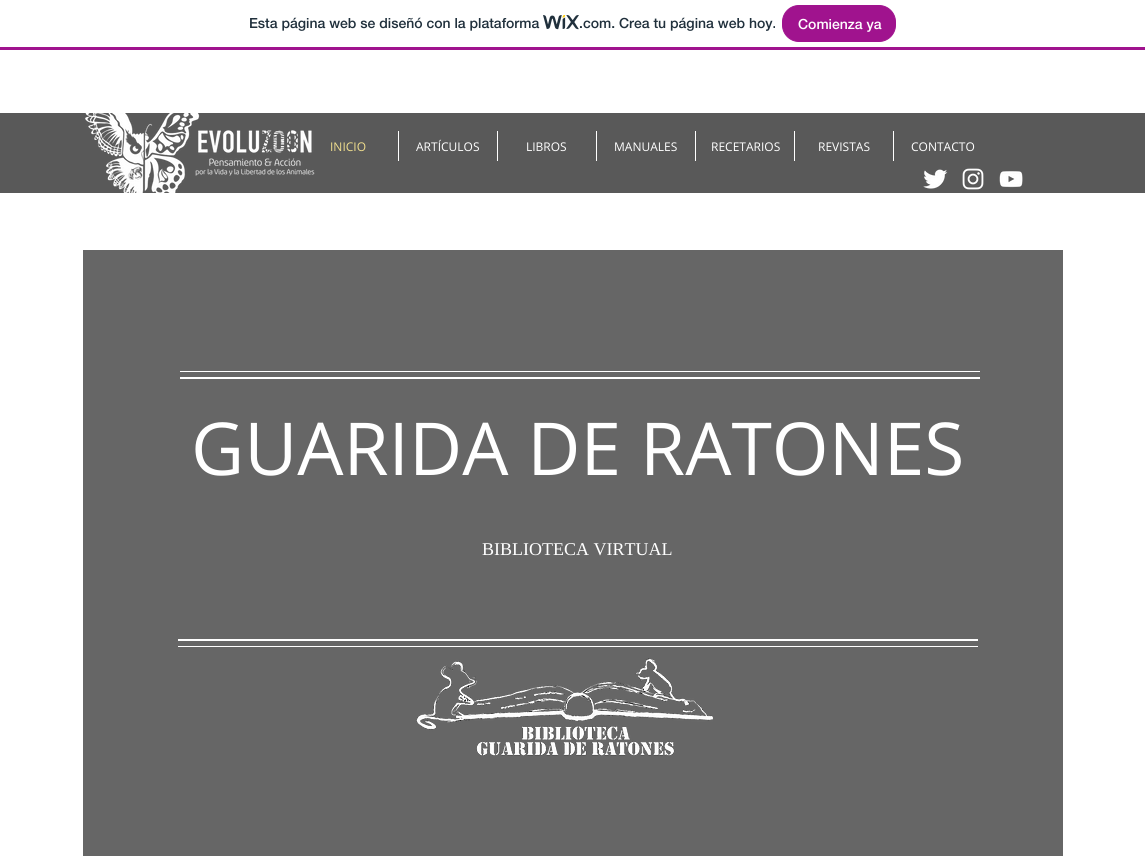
import math
import cairo

surface = cairo.ImageSurface(cairo.FORMAT_RGB24, 1145, 856)
ctx = cairo.Context(surface)
options = cairo.FontOptions()
options.set_hint_metrics(cairo.HINT_METRICS_OFF)
options.set_hint_style(cairo.HINT_STYLE_NONE)
ctx.set_font_options(options)
ctx.set_miter_limit(4)


def round_rect(x, y, w, h, r):
    ctx.new_sub_path()
    for i, (u, v) in enumerate([(x + w - r, y + h - r), (x + r, y + h - r), (x + r, y + r), (x + w - r, y + r)]):
        ctx.arc(u, v, r, i * math.pi / 2, (i + 1) * math.pi / 2)
    ctx.close_path()


def picture(path, x, y, w, h):
    ctx.save()
    ctx.set_source_surface(cairo.ImageSurface.create_from_png(path), x, y)
    ctx.rectangle(x, y, w, h)
    ctx.fill()
    ctx.restore()


ctx.set_source_rgb(1, 1, 1)
ctx.paint()
ctx.set_source_rgb(0.627, 0.075, 0.557)
ctx.rectangle(0, 47, 1145, 3)
ctx.fill()
ctx.select_font_face("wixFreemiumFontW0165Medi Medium")
ctx.set_font_size(14)
ctx.set_source_rgb(0.125, 0.188, 0.235)
ctx.move_to(249, 28)
ctx.show_text("Esta página web se diseñó con la plataforma")
picture("img1.png", 543, 15, 36, 15)
ctx.move_to(579, 28)
ctx.show_text(".com. Crea tu página web hoy.")
ctx.set_source_rgb(0.627, 0.075, 0.557)
round_rect(782.5, 5.5, 113, 36, 16.5)
ctx.fill_preserve()
ctx.set_line_width(1)
ctx.stroke()
ctx.set_source_rgb(1, 1, 1)
ctx.move_to(798, 29)
ctx.show_text("Comienza ya")
ctx.set_source_rgb(0.349, 0.349, 0.349)
ctx.rectangle(0, 113, 1145, 80)
ctx.fill()
picture("img3.png", 195, 130, 120, 46)
picture("img2.png", 85, 113, 115, 80)
ctx.select_font_face("Open Sans")
ctx.set_font_size(12)
ctx.set_source_rgb(0.937, 0.867, 0.553)
ctx.move_to(330, 151)
ctx.show_text("INICIO")
ctx.set_source_rgb(1, 1, 1)
ctx.rectangle(398, 131, 1, 30)
ctx.fill()
ctx.move_to(416, 151)
ctx.show_text("ARTÍCULOS")
ctx.rectangle(497, 131, 1, 30)
ctx.fill()
ctx.move_to(526, 151)
ctx.show_text("LIBROS")
ctx.rectangle(596, 131, 1, 30)
ctx.fill()
ctx.move_to(614, 151)
ctx.show_text("MANUALES")
ctx.rectangle(695, 131, 1, 30)
ctx.fill()
ctx.move_to(711, 151)
ctx.show_text("RECETARIOS")
ctx.rectangle(794, 131, 1, 30)
ctx.fill()
ctx.move_to(818, 151)
ctx.show_text("REVISTAS")
ctx.rectangle(893, 131, 1, 30)
ctx.fill()
ctx.move_to(911, 151)
ctx.show_text("CONTACTO")
picture("img4.png", 923, 169, 25, 20)
picture("img5.png", 962, 168, 22, 22)
picture("img6.png", 999, 171, 24, 17)
ctx.set_source_rgb(0.4, 0.4, 0.4)
ctx.rectangle(83, 250, 980, 606)
ctx.fill()
ctx.set_source_rgb(1, 1, 1)
ctx.rectangle(180, 371, 800, 1)
ctx.fill()
ctx.rectangle(180, 377, 800, 2)
ctx.fill()
ctx.set_font_size(73)
ctx.move_to(191, 475)
ctx.show_text("GUARIDA DE RATONES")
ctx.select_font_face("Liberation Serif")
ctx.set_font_size(18)
ctx.move_to(482, 555)
ctx.show_text("BIBLIOTECA VIRTUAL")
ctx.rectangle(178, 639, 800, 2)
ctx.fill()
ctx.rectangle(178, 646, 800, 1)
ctx.fill()
picture("img7.png", 416, 658, 297, 98)
surface.write_to_png("page.png")
